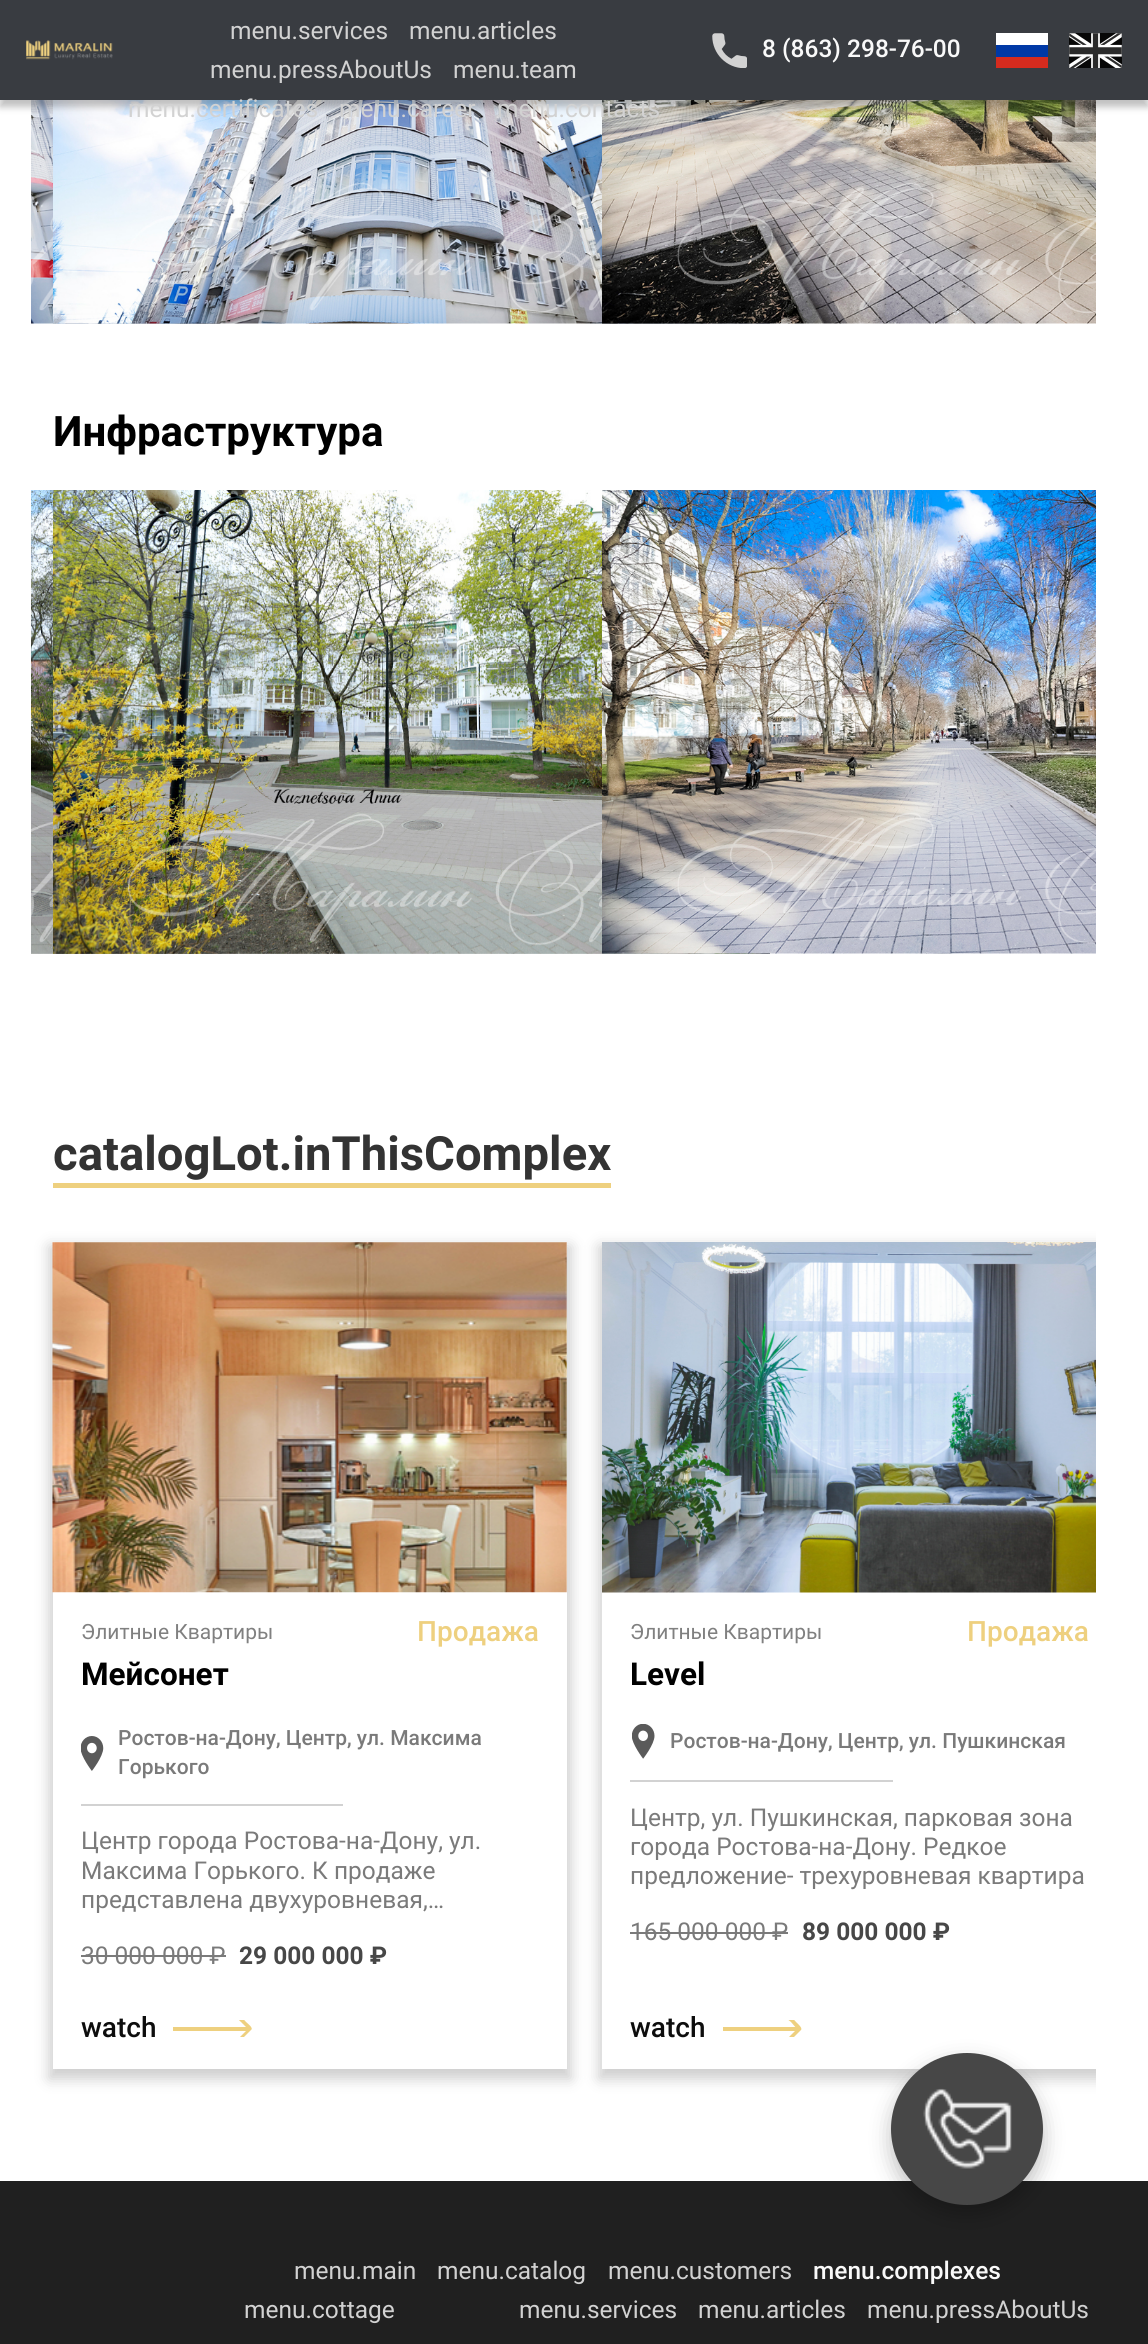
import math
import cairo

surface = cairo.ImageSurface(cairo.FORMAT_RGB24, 1148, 2344)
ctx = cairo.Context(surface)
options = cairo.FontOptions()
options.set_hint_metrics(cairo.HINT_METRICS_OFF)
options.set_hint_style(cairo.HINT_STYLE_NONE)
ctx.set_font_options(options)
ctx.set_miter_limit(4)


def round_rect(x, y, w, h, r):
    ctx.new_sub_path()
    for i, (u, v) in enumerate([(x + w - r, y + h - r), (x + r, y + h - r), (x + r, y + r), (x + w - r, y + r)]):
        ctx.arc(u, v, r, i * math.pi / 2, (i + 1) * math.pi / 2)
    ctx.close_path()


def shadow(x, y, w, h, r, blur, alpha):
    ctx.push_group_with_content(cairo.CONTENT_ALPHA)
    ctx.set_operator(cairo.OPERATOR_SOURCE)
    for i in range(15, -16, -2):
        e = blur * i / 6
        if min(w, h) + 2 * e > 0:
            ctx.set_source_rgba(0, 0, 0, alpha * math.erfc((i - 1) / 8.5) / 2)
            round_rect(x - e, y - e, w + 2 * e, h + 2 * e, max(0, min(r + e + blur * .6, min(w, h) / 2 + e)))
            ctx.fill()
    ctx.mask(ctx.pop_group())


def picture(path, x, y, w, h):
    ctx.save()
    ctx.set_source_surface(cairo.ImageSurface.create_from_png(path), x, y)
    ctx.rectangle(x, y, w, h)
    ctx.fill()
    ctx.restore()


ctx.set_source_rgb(1, 1, 1)
ctx.paint()
picture("img4.png", 31, 100, 190, 224)
picture("img5.png", 53, 100, 717, 224)
picture("img6.png", 602, 100, 494, 224)
ctx.set_source_rgb(0, 0, 0)
shadow(0, 7, 1148, 100, 0, 3.5, 0.25)
ctx.set_source_rgb(0.224, 0.235, 0.255)
ctx.rectangle(0, 0, 1148, 100)
ctx.fill()
picture("img1.png", 26, 40, 87, 20)
ctx.select_font_face("Roboto")
ctx.set_font_size(24.5)
ctx.set_source_rgb(0.824, 0.824, 0.824)
ctx.move_to(230, 39)
ctx.show_text("menu.services")
ctx.move_to(409, 39)
ctx.show_text("menu.articles")
ctx.move_to(210, 78)
ctx.show_text("menu.pressAboutUs")
ctx.move_to(453, 78)
ctx.show_text("menu.team")
ctx.move_to(128, 117)
ctx.show_text("menu.certificates")
ctx.move_to(339, 117)
ctx.show_text("menu.career")
ctx.move_to(497, 117)
ctx.show_text("menu.contacts")
picture("img2.png", 712, 33, 35, 35)
ctx.select_font_face("Roboto Medium")
ctx.set_source_rgb(0.976, 0.976, 0.976)
ctx.move_to(762, 57)
ctx.show_text("8 (863) 298-76-00")
ctx.set_source_rgb(1, 1, 1)
ctx.rectangle(996, 33, 52, 12)
ctx.fill()
ctx.set_source_rgb(0.835, 0.169, 0.118)
ctx.rectangle(996, 57, 52, 11)
ctx.fill()
ctx.set_source_rgb(0, 0.224, 0.651)
ctx.rectangle(996, 45, 52, 12)
ctx.fill()
picture("img3.png", 1069, 33, 53, 35)
ctx.select_font_face("Roboto", cairo.FONT_SLANT_NORMAL, cairo.FONT_WEIGHT_BOLD)
ctx.set_font_size(42)
ctx.set_source_rgb(0, 0, 0)
ctx.move_to(53, 446)
ctx.show_text("Инфраструктура")
picture("img7.png", 31, 490, 190, 464)
picture("img8.png", 53, 490, 717, 464)
picture("img9.png", 602, 490, 494, 464)
ctx.set_font_size(47.25)
ctx.set_source_rgb(0.2, 0.2, 0.2)
ctx.move_to(53, 1170)
ctx.show_text("catalogLot.inThisComplex")
ctx.set_source_rgb(0.933, 0.816, 0.498)
ctx.rectangle(53, 1183, 558, 5)
ctx.fill()
ctx.set_source_rgb(0.016, 0.016, 0.016)
shadow(49, 1246, 522, 833, 0, 7, 0.2)
ctx.set_source_rgb(1, 1, 1)
ctx.rectangle(53, 1243, 514, 826)
ctx.fill()
picture("img10.png", 52, 1242, 515, 351)
ctx.select_font_face("Roboto")
ctx.set_font_size(21)
ctx.set_source_rgb(0.502, 0.502, 0.502)
ctx.move_to(81, 1639)
ctx.show_text("Элитные Квартиры")
ctx.select_font_face("Roboto Medium")
ctx.set_font_size(28)
ctx.set_source_rgb(0.933, 0.816, 0.498)
ctx.move_to(417, 1641)
ctx.show_text("Продажа")
ctx.select_font_face("Roboto", cairo.FONT_SLANT_NORMAL, cairo.FONT_WEIGHT_BOLD)
ctx.set_font_size(31.5)
ctx.set_source_rgb(0, 0, 0)
ctx.move_to(81, 1685)
ctx.show_text("Мейсонет")
picture("img11.png", 81, 1736, 23, 35)
ctx.select_font_face("Roboto Medium")
ctx.set_font_size(21)
ctx.set_source_rgb(0.478, 0.478, 0.478)
ctx.move_to(118, 1745)
ctx.show_text("Ростов-на-Дону, Центр, ул. Максима")
ctx.move_to(118, 1774)
ctx.show_text("Горького")
ctx.set_source_rgb(0.824, 0.824, 0.824)
ctx.rectangle(81, 1804, 262, 2)
ctx.fill()
ctx.select_font_face("Roboto")
ctx.set_font_size(24.5)
ctx.set_source_rgb(0.478, 0.478, 0.478)
ctx.move_to(81, 1849)
ctx.show_text("Центр города Ростова-на-Дону, ул.")
ctx.move_to(81, 1879)
ctx.show_text("Максима Горького. К продаже")
ctx.move_to(81, 1908)
ctx.show_text("представлена двухуровневая,…")
ctx.move_to(81, 1964)
ctx.show_text("30 000 000 ₽")
ctx.rectangle(81, 1955, 145, 2)
ctx.fill()
ctx.select_font_face("Roboto", cairo.FONT_SLANT_NORMAL, cairo.FONT_WEIGHT_BOLD)
ctx.set_source_rgb(0.278, 0.278, 0.278)
ctx.move_to(239, 1964)
ctx.show_text("29 000 000 ₽")
ctx.select_font_face("Roboto Medium")
ctx.set_font_size(28)
ctx.set_source_rgb(0.051, 0.051, 0.051)
ctx.move_to(81, 2037)
ctx.show_text("watch")
ctx.save()
ctx.rectangle(173, 2020, 79, 17)
ctx.clip()
ctx.set_source_rgb(0.933, 0.816, 0.498)
ctx.new_path()
ctx.move_to(251, 2030)
ctx.curve_to(254, 2028, 247, 2023, 246, 2022)
ctx.curve_to(245, 2021, 239, 2013, 238, 2017)
ctx.curve_to(237, 2019, 240, 2021, 241, 2022)
ctx.line_to(248, 2029)
ctx.line_to(238, 2039)
ctx.line_to(238, 2041)
ctx.curve_to(240, 2043, 243, 2038, 244, 2037)
ctx.close_path()
ctx.move_to(173, 2031)
ctx.line_to(250, 2031)
ctx.line_to(250, 2027)
ctx.line_to(173, 2027)
ctx.close_path()
ctx.fill()
ctx.restore()
ctx.save()
ctx.rectangle(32, 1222, 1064, 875)
ctx.clip()
ctx.set_source_rgb(0.016, 0.016, 0.016)
shadow(599, 1246, 521, 833, 0, 7, 0.2)
ctx.restore()
ctx.set_source_rgb(1, 1, 1)
ctx.rectangle(602, 1592, 494, 477)
ctx.fill()
picture("img12.png", 602, 1242, 494, 351)
ctx.select_font_face("Roboto")
ctx.set_font_size(21)
ctx.set_source_rgb(0.502, 0.502, 0.502)
ctx.move_to(630, 1639)
ctx.show_text("Элитные Квартиры")
ctx.select_font_face("Roboto Medium")
ctx.set_font_size(28)
ctx.set_source_rgb(0.933, 0.816, 0.498)
ctx.move_to(967, 1641)
ctx.show_text("Продажа")
ctx.select_font_face("Roboto", cairo.FONT_SLANT_NORMAL, cairo.FONT_WEIGHT_BOLD)
ctx.set_font_size(31.5)
ctx.set_source_rgb(0, 0, 0)
ctx.move_to(630, 1685)
ctx.show_text("Level")
picture("img13.png", 632, 1724, 23, 35)
ctx.select_font_face("Roboto Medium")
ctx.set_font_size(21)
ctx.set_source_rgb(0.478, 0.478, 0.478)
ctx.move_to(670, 1748)
ctx.show_text("Ростов-на-Дону, Центр, ул. Пушкинская")
ctx.set_source_rgb(0.824, 0.824, 0.824)
ctx.rectangle(630, 1780, 263, 2)
ctx.fill()
ctx.select_font_face("Roboto")
ctx.set_font_size(24.5)
ctx.set_source_rgb(0.478, 0.478, 0.478)
ctx.move_to(630, 1826)
ctx.show_text("Центр, ул. Пушкинская, парковая зона")
ctx.move_to(630, 1855)
ctx.show_text("города Ростова-на-Дону. Редкое")
ctx.move_to(630, 1884)
ctx.show_text("предложение- трехуровневая квартира")
ctx.move_to(630, 1940)
ctx.show_text("165 000 000 ₽")
ctx.rectangle(630, 1932, 158, 2)
ctx.fill()
ctx.select_font_face("Roboto", cairo.FONT_SLANT_NORMAL, cairo.FONT_WEIGHT_BOLD)
ctx.set_source_rgb(0.278, 0.278, 0.278)
ctx.move_to(802, 1940)
ctx.show_text("89 000 000 ₽")
ctx.select_font_face("Roboto Medium")
ctx.set_font_size(28)
ctx.set_source_rgb(0.051, 0.051, 0.051)
ctx.move_to(630, 2037)
ctx.show_text("watch")
ctx.save()
ctx.rectangle(723, 2020, 79, 17)
ctx.clip()
ctx.set_source_rgb(0.933, 0.816, 0.498)
ctx.new_path()
ctx.move_to(801, 2030)
ctx.curve_to(803, 2028, 797, 2023, 796, 2022)
ctx.curve_to(795, 2021, 789, 2013, 787, 2017)
ctx.curve_to(786, 2019, 790, 2021, 791, 2022)
ctx.line_to(797, 2029)
ctx.line_to(787, 2039)
ctx.line_to(788, 2041)
ctx.curve_to(790, 2043, 793, 2038, 794, 2037)
ctx.close_path()
ctx.move_to(723, 2031)
ctx.line_to(800, 2031)
ctx.line_to(800, 2027)
ctx.line_to(723, 2027)
ctx.close_path()
ctx.fill()
ctx.restore()
ctx.set_source_rgb(0.125, 0.125, 0.125)
ctx.rectangle(0, 2181, 1148, 163)
ctx.fill()
ctx.set_source_rgb(0, 0, 0)
shadow(891, 2062, 152, 152, 76, 10.5, 0.25)
ctx.set_source_rgb(0.278, 0.278, 0.278)
ctx.arc(967, 2129, 76, 0, 2 * math.pi)
ctx.fill()
picture("img14.png", 923, 2088, 89, 81)
ctx.select_font_face("Roboto")
ctx.set_font_size(24.5)
ctx.set_source_rgb(0.824, 0.824, 0.824)
ctx.move_to(294, 2279)
ctx.show_text("menu.main")
ctx.move_to(437, 2279)
ctx.show_text("menu.catalog")
ctx.move_to(608, 2279)
ctx.show_text("menu.customers")
ctx.select_font_face("Roboto Medium")
ctx.set_source_rgb(0.976, 0.976, 0.976)
ctx.move_to(813, 2279)
ctx.show_text("menu.complexes")
ctx.select_font_face("Roboto")
ctx.set_source_rgb(0.824, 0.824, 0.824)
ctx.move_to(244, 2318)
ctx.show_text("menu.cottage")
ctx.move_to(519, 2318)
ctx.show_text("menu.services")
ctx.move_to(698, 2318)
ctx.show_text("menu.articles")
ctx.move_to(867, 2318)
ctx.show_text("menu.pressAboutUs")
surface.write_to_png("page.png")
